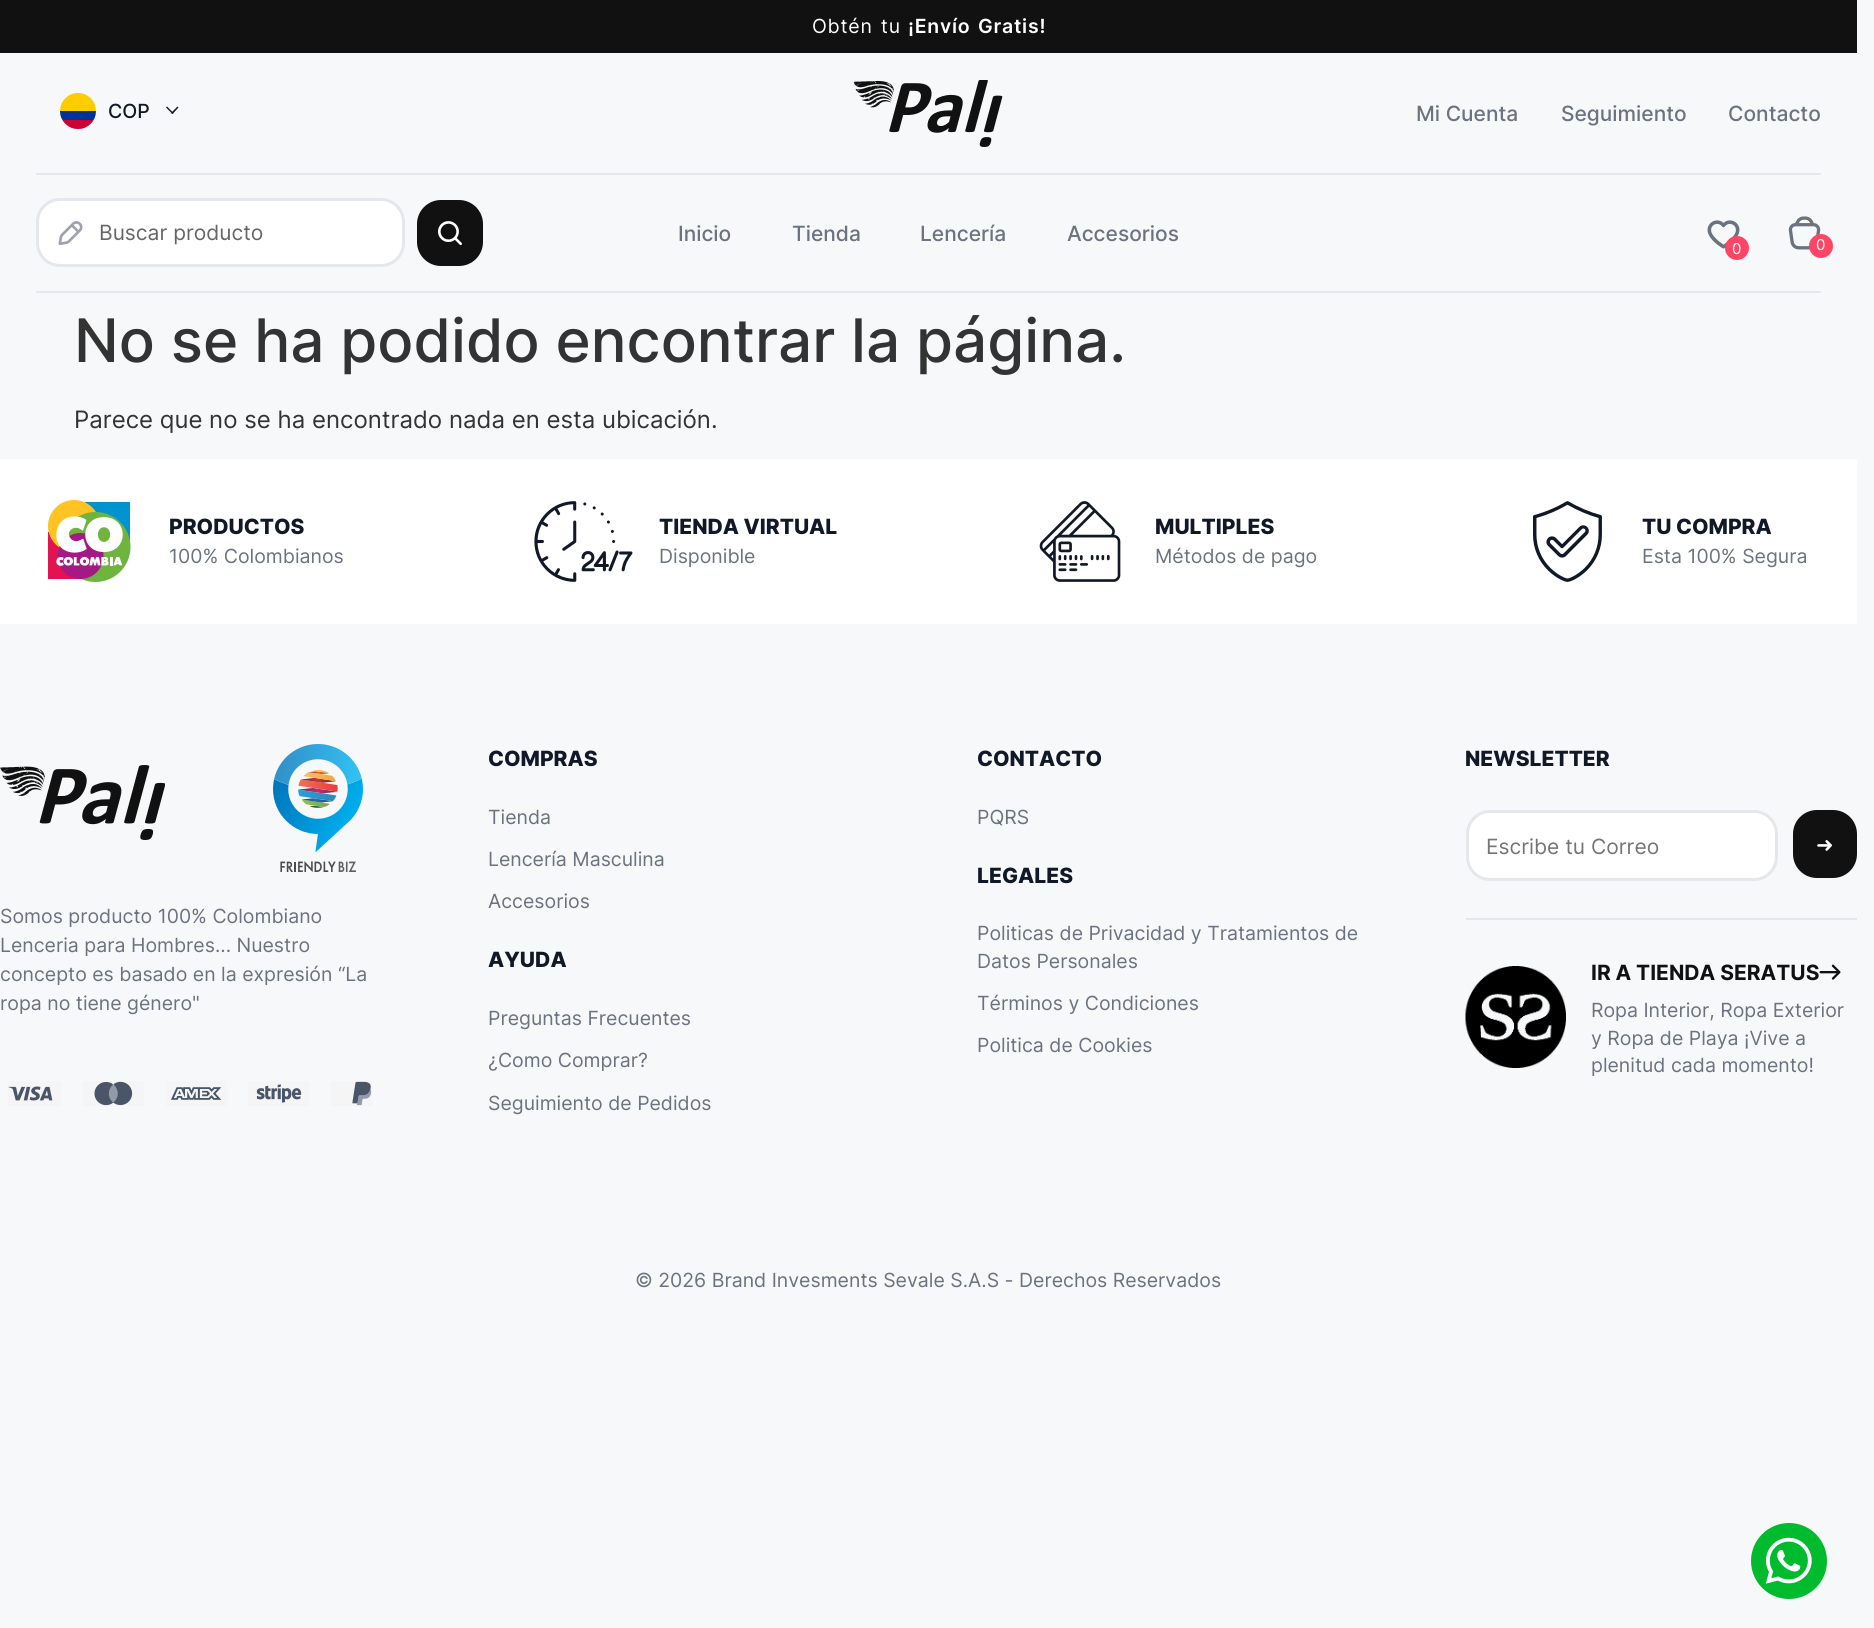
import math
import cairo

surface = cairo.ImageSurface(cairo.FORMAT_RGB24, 1874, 1628)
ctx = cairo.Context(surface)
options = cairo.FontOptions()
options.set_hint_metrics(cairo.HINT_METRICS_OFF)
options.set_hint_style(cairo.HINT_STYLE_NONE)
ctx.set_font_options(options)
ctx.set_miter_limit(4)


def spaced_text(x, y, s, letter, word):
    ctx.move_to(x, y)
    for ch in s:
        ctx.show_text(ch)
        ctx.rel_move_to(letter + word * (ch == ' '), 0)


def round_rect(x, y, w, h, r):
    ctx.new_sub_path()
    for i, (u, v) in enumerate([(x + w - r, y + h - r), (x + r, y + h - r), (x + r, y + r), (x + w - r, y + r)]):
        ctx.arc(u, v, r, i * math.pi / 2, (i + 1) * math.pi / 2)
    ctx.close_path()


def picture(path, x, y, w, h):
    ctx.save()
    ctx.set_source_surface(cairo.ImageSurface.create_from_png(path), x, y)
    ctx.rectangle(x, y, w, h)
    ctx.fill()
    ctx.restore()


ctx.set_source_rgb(0.961, 0.969, 0.976)
ctx.paint()
ctx.set_source_rgb(0.067, 0.067, 0.067)
ctx.rectangle(0, 0, 1857, 53)
ctx.fill()
ctx.select_font_face("Inter")
ctx.set_font_size(19.5)
ctx.set_source_rgb(1, 1, 1)
spaced_text(812, 33, "Obtén tu", 0.75, 2)
ctx.save()
ctx.rectangle(537, 17, 785, 19)
ctx.clip()
ctx.select_font_face("Inter SemiBold")
spaced_text(908, 33, "¡Envío Gratis!", 0.75, 2)
ctx.restore()
picture("img1.png", 60, 93, 36, 36)
ctx.select_font_face("Inter Medium")
ctx.set_source_rgb(0.067, 0.094, 0.153)
ctx.move_to(108, 118)
ctx.show_text("COP")
ctx.new_path()
ctx.move_to(177.5, 106.5)
ctx.line_to(178.5, 107.5)
ctx.line_to(172.5, 114)
ctx.line_to(171, 113)
ctx.close_path()
ctx.fill()
ctx.new_path()
ctx.move_to(167, 106.5)
ctx.line_to(173.5, 113)
ctx.line_to(172.5, 114)
ctx.line_to(166, 107.5)
ctx.close_path()
ctx.fill()
picture("img2.png", 854, 80, 149, 67)
ctx.set_font_size(21)
ctx.set_source_rgb(0.42, 0.447, 0.502)
ctx.move_to(1416, 121)
ctx.show_text("Mi Cuenta")
ctx.move_to(1561, 121)
ctx.show_text("Seguimiento")
ctx.move_to(1728, 121)
ctx.show_text("Contacto")
ctx.set_source_rgb(0.898, 0.906, 0.922)
ctx.rectangle(36, 173, 1785, 2)
ctx.fill()
ctx.rectangle(36, 291, 1785, 2)
ctx.fill()
ctx.set_source_rgb(1, 1, 1)
round_rect(37.5, 199.5, 366, 66, 22.5)
ctx.fill_preserve()
ctx.set_source_rgb(0.898, 0.906, 0.922)
ctx.set_line_width(3)
ctx.stroke()
picture("img3.png", 58, 221, 25, 24)
ctx.select_font_face("Inter")
ctx.set_source_rgb(0.4, 0.4, 0.4)
ctx.move_to(99, 240)
ctx.show_text("Buscar producto")
ctx.set_source_rgb(0.067, 0.067, 0.067)
round_rect(417, 200, 66, 66, 24)
ctx.fill()
picture("img4.png", 438, 221, 24, 25)
ctx.select_font_face("Inter Medium")
ctx.set_source_rgb(0.42, 0.447, 0.502)
ctx.move_to(678, 241)
ctx.show_text("Inicio")
ctx.move_to(792, 241)
ctx.show_text("Tienda")
ctx.move_to(920, 241)
ctx.show_text("Lencería")
ctx.move_to(1067, 241)
ctx.show_text("Accesorios")
picture("img5.png", 1707, 220, 33, 29)
ctx.set_source_rgb(1, 0.271, 0.396)
ctx.arc(1737, 248, 12, 0, 2 * math.pi)
ctx.fill()
ctx.select_font_face("Inter")
ctx.set_font_size(15)
ctx.set_source_rgb(1, 1, 1)
ctx.move_to(1732, 254)
ctx.show_text("0")
picture("img6.png", 1788, 216, 33, 34)
ctx.set_source_rgb(1, 0.271, 0.396)
ctx.arc(1821, 246, 12, 0, 2 * math.pi)
ctx.fill()
ctx.set_source_rgb(1, 1, 1)
ctx.move_to(1816, 250)
ctx.show_text("0")
ctx.select_font_face("Inter Medium")
ctx.set_font_size(60)
ctx.set_source_rgb(0.2, 0.2, 0.2)
ctx.move_to(74, 362)
ctx.show_text("No se ha podido encontrar la página.")
ctx.select_font_face("Inter")
ctx.set_font_size(24)
ctx.move_to(74, 428)
ctx.show_text("Parece que no se ha encontrado nada en esta ubicación.")
ctx.set_source_rgb(1, 1, 1)
ctx.rectangle(0, 459, 1857, 165)
ctx.fill()
picture("img7.png", 48, 500, 83, 82)
ctx.select_font_face("Inter ExtraBold")
ctx.set_font_size(21)
ctx.set_source_rgb(0.067, 0.094, 0.153)
ctx.move_to(169, 534)
ctx.show_text("PRODUCTOS")
ctx.select_font_face("Inter")
ctx.set_font_size(19.5)
ctx.set_source_rgb(0.42, 0.447, 0.502)
ctx.move_to(169, 563)
ctx.show_text("100% Colombianos")
picture("img8.png", 534, 501, 99, 81)
ctx.select_font_face("Inter ExtraBold")
ctx.set_font_size(21)
ctx.set_source_rgb(0.067, 0.094, 0.153)
ctx.move_to(659, 534)
ctx.show_text("TIENDA VIRTUAL")
ctx.select_font_face("Inter")
ctx.set_font_size(19.5)
ctx.set_source_rgb(0.42, 0.447, 0.502)
ctx.move_to(659, 563)
ctx.show_text("Disponible")
picture("img9.png", 1039, 501, 82, 81)
ctx.select_font_face("Inter ExtraBold")
ctx.set_font_size(21)
ctx.set_source_rgb(0.067, 0.094, 0.153)
ctx.move_to(1155, 534)
ctx.show_text("MULTIPLES")
ctx.select_font_face("Inter")
ctx.set_font_size(19.5)
ctx.set_source_rgb(0.42, 0.447, 0.502)
ctx.move_to(1155, 563)
ctx.show_text("Métodos de pago")
picture("img10.png", 1533, 501, 69, 81)
ctx.select_font_face("Inter ExtraBold")
ctx.set_font_size(21)
ctx.set_source_rgb(0.067, 0.094, 0.153)
ctx.move_to(1642, 534)
ctx.show_text("TU COMPRA")
ctx.select_font_face("Inter")
ctx.set_font_size(19.5)
ctx.set_source_rgb(0.42, 0.447, 0.502)
ctx.move_to(1642, 563)
ctx.show_text("Esta 100% Segura")
picture("img11.png", 0, 765, 165, 75)
picture("img12.png", 273, 744, 90, 128)
ctx.move_to(0, 923)
ctx.show_text("Somos producto 100% Colombiano")
ctx.move_to(0, 952)
ctx.show_text("Lenceria para Hombres... Nuestro")
ctx.move_to(0, 981)
ctx.show_text("concepto es basado en la expresión “La")
ctx.move_to(0, 1010)
ctx.show_text("ropa no tiene género\"")
picture("img13.png", 8, 1081, 364, 25)
ctx.select_font_face("Inter ExtraBold")
ctx.set_font_size(21)
ctx.set_source_rgb(0.067, 0.094, 0.153)
ctx.move_to(488, 766)
ctx.show_text("COMPRAS")
ctx.select_font_face("Inter")
ctx.set_font_size(19.5)
ctx.set_source_rgb(0.42, 0.447, 0.502)
ctx.move_to(488, 824)
ctx.show_text("Tienda")
ctx.move_to(488, 866)
ctx.show_text("Lencería Masculina")
ctx.move_to(488, 908)
ctx.show_text("Accesorios")
ctx.select_font_face("Inter ExtraBold")
ctx.set_font_size(21)
ctx.set_source_rgb(0.067, 0.094, 0.153)
ctx.move_to(488, 967)
ctx.show_text("AYUDA")
ctx.select_font_face("Inter")
ctx.set_font_size(19.5)
ctx.set_source_rgb(0.42, 0.447, 0.502)
ctx.move_to(488, 1025)
ctx.show_text("Preguntas Frecuentes")
ctx.move_to(488, 1067)
ctx.show_text("¿Como Comprar?")
ctx.move_to(488, 1110)
ctx.show_text("Seguimiento de Pedidos")
ctx.select_font_face("Inter ExtraBold")
ctx.set_font_size(21)
ctx.set_source_rgb(0.067, 0.094, 0.153)
ctx.move_to(977, 766)
ctx.show_text("CONTACTO")
ctx.select_font_face("Inter")
ctx.set_font_size(19.5)
ctx.set_source_rgb(0.42, 0.447, 0.502)
ctx.move_to(977, 824)
ctx.show_text("PQRS")
ctx.select_font_face("Inter ExtraBold")
ctx.set_font_size(21)
ctx.set_source_rgb(0.067, 0.094, 0.153)
ctx.move_to(977, 883)
ctx.show_text("LEGALES")
ctx.select_font_face("Inter")
ctx.set_font_size(19.5)
ctx.set_source_rgb(0.42, 0.447, 0.502)
ctx.move_to(977, 940)
ctx.show_text("Politicas de Privacidad y Tratamientos de")
ctx.move_to(977, 968)
ctx.show_text("Datos Personales")
ctx.move_to(977, 1010)
ctx.show_text("Términos y Condiciones")
ctx.move_to(977, 1052)
ctx.show_text("Politica de Cookies")
ctx.select_font_face("Inter ExtraBold")
ctx.set_font_size(21)
ctx.set_source_rgb(0.067, 0.094, 0.153)
ctx.move_to(1465, 766)
ctx.show_text("NEWSLETTER")
ctx.set_source_rgb(1, 1, 1)
round_rect(1467.5, 811.5, 309, 68, 22.5)
ctx.fill_preserve()
ctx.set_source_rgb(0.898, 0.906, 0.922)
ctx.stroke()
ctx.select_font_face("Inter")
ctx.set_source_rgb(0.459, 0.459, 0.459)
ctx.move_to(1486, 854)
ctx.show_text("Escribe tu Correo")
ctx.set_source_rgb(0.067, 0.067, 0.067)
round_rect(1794, 811, 62, 66, 23)
ctx.fill_preserve()
ctx.set_line_width(2)
ctx.stroke()
ctx.select_font_face("DejaVu Sans")
ctx.set_source_rgb(1, 1, 1)
ctx.move_to(1816, 852)
ctx.show_text("➜")
ctx.set_source_rgb(0.898, 0.906, 0.922)
ctx.rectangle(1466, 918, 391, 2)
ctx.fill()
picture("img14.png", 1465, 966, 101, 102)
ctx.select_font_face("Inter", cairo.FONT_SLANT_NORMAL, cairo.FONT_WEIGHT_BOLD)
ctx.set_source_rgb(0.067, 0.067, 0.067)
ctx.move_to(1591, 980)
ctx.show_text("IR A TIENDA SERATUS")
picture("img15.png", 1819, 964, 22, 16)
ctx.select_font_face("Inter")
ctx.set_font_size(19.5)
ctx.set_source_rgb(0.42, 0.447, 0.502)
ctx.move_to(1591, 1017)
ctx.show_text("Ropa Interior, Ropa Exterior")
ctx.move_to(1591, 1045)
ctx.show_text("y Ropa de Playa ¡Vive a")
ctx.move_to(1591, 1072)
ctx.show_text("plenitud cada momento!")
ctx.move_to(635, 1287)
ctx.show_text("© 2026 Brand Invesments Sevale S.A.S - Derechos Reservados")
ctx.set_source_rgb(0, 0.733, 0.176)
ctx.new_path()
ctx.arc(1789, 1561, 38, 0, 2 * math.pi)
ctx.fill()
picture("img16.png", 1765, 1537, 47, 47)
surface.write_to_png("page.png")
